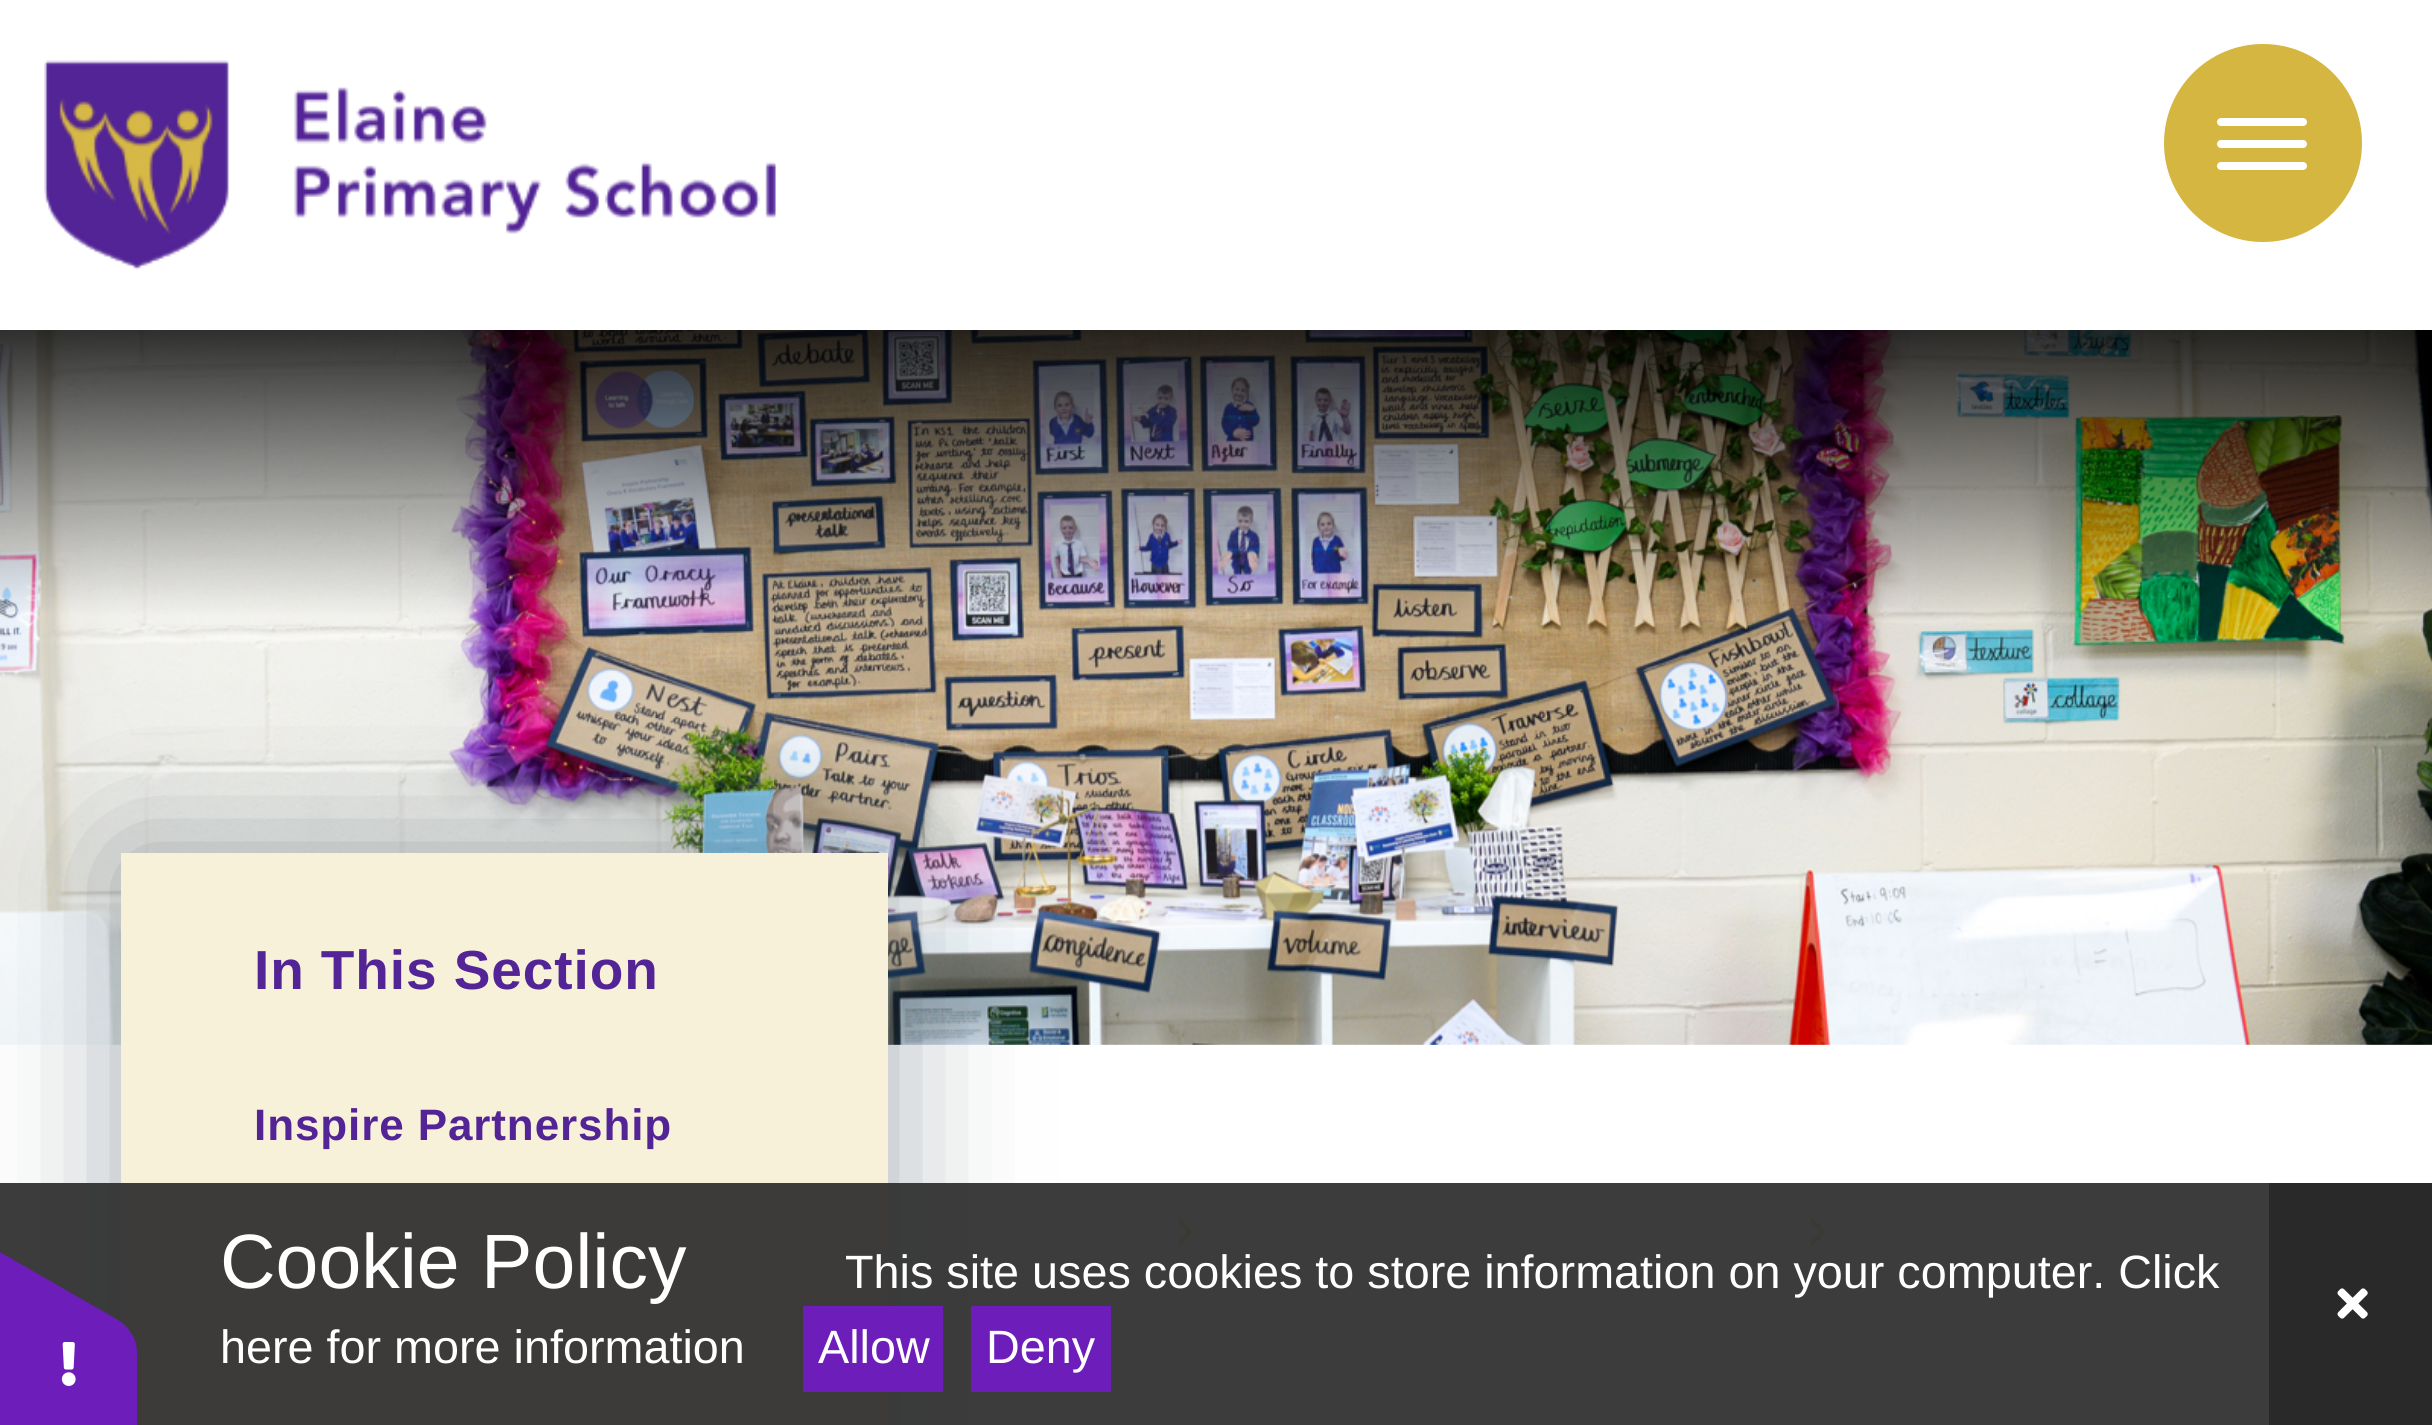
import math
import cairo

surface = cairo.ImageSurface(cairo.FORMAT_RGB24, 2432, 1425)
ctx = cairo.Context(surface)
options = cairo.FontOptions()
options.set_hint_metrics(cairo.HINT_METRICS_OFF)
options.set_hint_style(cairo.HINT_STYLE_NONE)
ctx.set_font_options(options)
ctx.set_miter_limit(4)


def spaced_text(x, y, s, letter, word):
    ctx.move_to(x, y)
    for ch in s:
        ctx.show_text(ch)
        ctx.rel_move_to(letter + word * (ch == ' '), 0)


def round_rect(x, y, w, h, r):
    ctx.new_sub_path()
    for i, (u, v) in enumerate([(x + w - r, y + h - r), (x + r, y + h - r), (x + r, y + r), (x + w - r, y + r)]):
        ctx.arc(u, v, r, i * math.pi / 2, (i + 1) * math.pi / 2)
    ctx.close_path()


def shadow(x, y, w, h, r, blur, alpha):
    ctx.push_group_with_content(cairo.CONTENT_ALPHA)
    ctx.set_operator(cairo.OPERATOR_SOURCE)
    for i in range(15, -16, -2):
        e = blur * i / 6
        if min(w, h) + 2 * e > 0:
            ctx.set_source_rgba(0, 0, 0, alpha * math.erfc((i - 1) / 8.5) / 2)
            round_rect(x - e, y - e, w + 2 * e, h + 2 * e, max(0, min(r + e + blur * .6, min(w, h) / 2 + e)))
            ctx.fill()
    ctx.mask(ctx.pop_group())


def picture(path, x, y, w, h):
    ctx.save()
    ctx.set_source_surface(cairo.ImageSurface.create_from_png(path), x, y)
    ctx.rectangle(x, y, w, h)
    ctx.fill()
    ctx.restore()


ctx.set_source_rgb(1, 1, 1)
ctx.paint()
picture("img1.png", 44, 60, 732, 210)
ctx.set_source_rgb(0.835, 0.714, 0.255)
ctx.arc(2263, 143, 99, 0, 2 * math.pi)
ctx.fill()
ctx.set_source_rgb(1, 1, 1)
round_rect(2217, 140, 90, 8, 4)
ctx.fill()
round_rect(2217, 118, 90, 8, 4)
ctx.fill()
round_rect(2217, 162, 90, 8, 4)
ctx.fill()
picture("img2.png", 0, 330, 2432, 715)
ctx.set_source_rgb(0.275, 0.341, 0.373)
shadow(121, 853, 767, 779, 0, 69, 0.5)
ctx.set_source_rgb(0.969, 0.945, 0.855)
ctx.rectangle(121, 853, 767, 572)
ctx.fill()
ctx.select_font_face("Liberation Sans", cairo.FONT_SLANT_NORMAL, cairo.FONT_WEIGHT_BOLD)
ctx.set_font_size(55)
ctx.set_source_rgb(0.325, 0.141, 0.588)
spaced_text(254, 989, "In This Section", 0.9, 0)
ctx.set_font_size(44)
spaced_text(254, 1140, "Inspire Partnership", 0.9, 0)
picture("img3.png", 1177, 1218, 17, 28)
picture("img4.png", 1809, 1218, 17, 28)
ctx.set_source_rgba(0.2, 0.2, 0.2, 0.95)
ctx.rectangle(0, 1183, 2269, 242)
ctx.fill()
ctx.set_source_rgb(0.424, 0.114, 0.729)
ctx.new_path()
ctx.move_to(137, 1353)
ctx.line_to(137, 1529)
ctx.curve_to(137, 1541, 132, 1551, 126, 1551)
ctx.line_to(-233, 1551)
ctx.curve_to(-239, 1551, -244, 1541, -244, 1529)
ctx.line_to(-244, 1353)
ctx.curve_to(-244, 1341, -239, 1331, -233, 1331)
ctx.line_to(126, 1331)
ctx.curve_to(132, 1331, 137, 1341, 137, 1353)
ctx.close_path()
ctx.fill()
ctx.new_path()
ctx.move_to(-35, 1232)
ctx.line_to(118, 1320)
ctx.curve_to(128, 1326, 134, 1335, 131, 1340)
ctx.line_to(-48, 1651)
ctx.curve_to(-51, 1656, -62, 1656, -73, 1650)
ctx.line_to(-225, 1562)
ctx.curve_to(-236, 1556, -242, 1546, -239, 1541)
ctx.line_to(-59, 1230)
ctx.curve_to(-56, 1225, -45, 1226, -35, 1232)
ctx.close_path()
ctx.fill()
picture("img5.png", 61, 1342, 15, 44)
ctx.select_font_face("Liberation Sans")
ctx.set_font_size(77)
ctx.set_source_rgb(1, 1, 1)
ctx.move_to(220, 1288)
ctx.show_text("Cookie Policy")
ctx.set_font_size(46.75)
ctx.move_to(845, 1288)
ctx.show_text("This site uses cookies to store information on your computer. Click")
ctx.move_to(220, 1363)
ctx.show_text("here for more information")
ctx.set_source_rgb(0.424, 0.114, 0.729)
ctx.rectangle(803, 1306, 140, 86)
ctx.fill()
ctx.set_source_rgb(1, 1, 1)
ctx.move_to(818, 1363)
ctx.show_text("Allow")
ctx.set_source_rgb(0.424, 0.114, 0.729)
ctx.rectangle(971, 1306, 140, 86)
ctx.fill()
ctx.set_source_rgb(1, 1, 1)
ctx.move_to(986, 1363)
ctx.show_text("Deny")
ctx.set_source_rgb(0.161, 0.161, 0.161)
ctx.rectangle(2269, 1183, 163, 242)
ctx.fill()
picture("img6.png", 2337, 1288, 31, 31)
surface.write_to_png("page.png")
